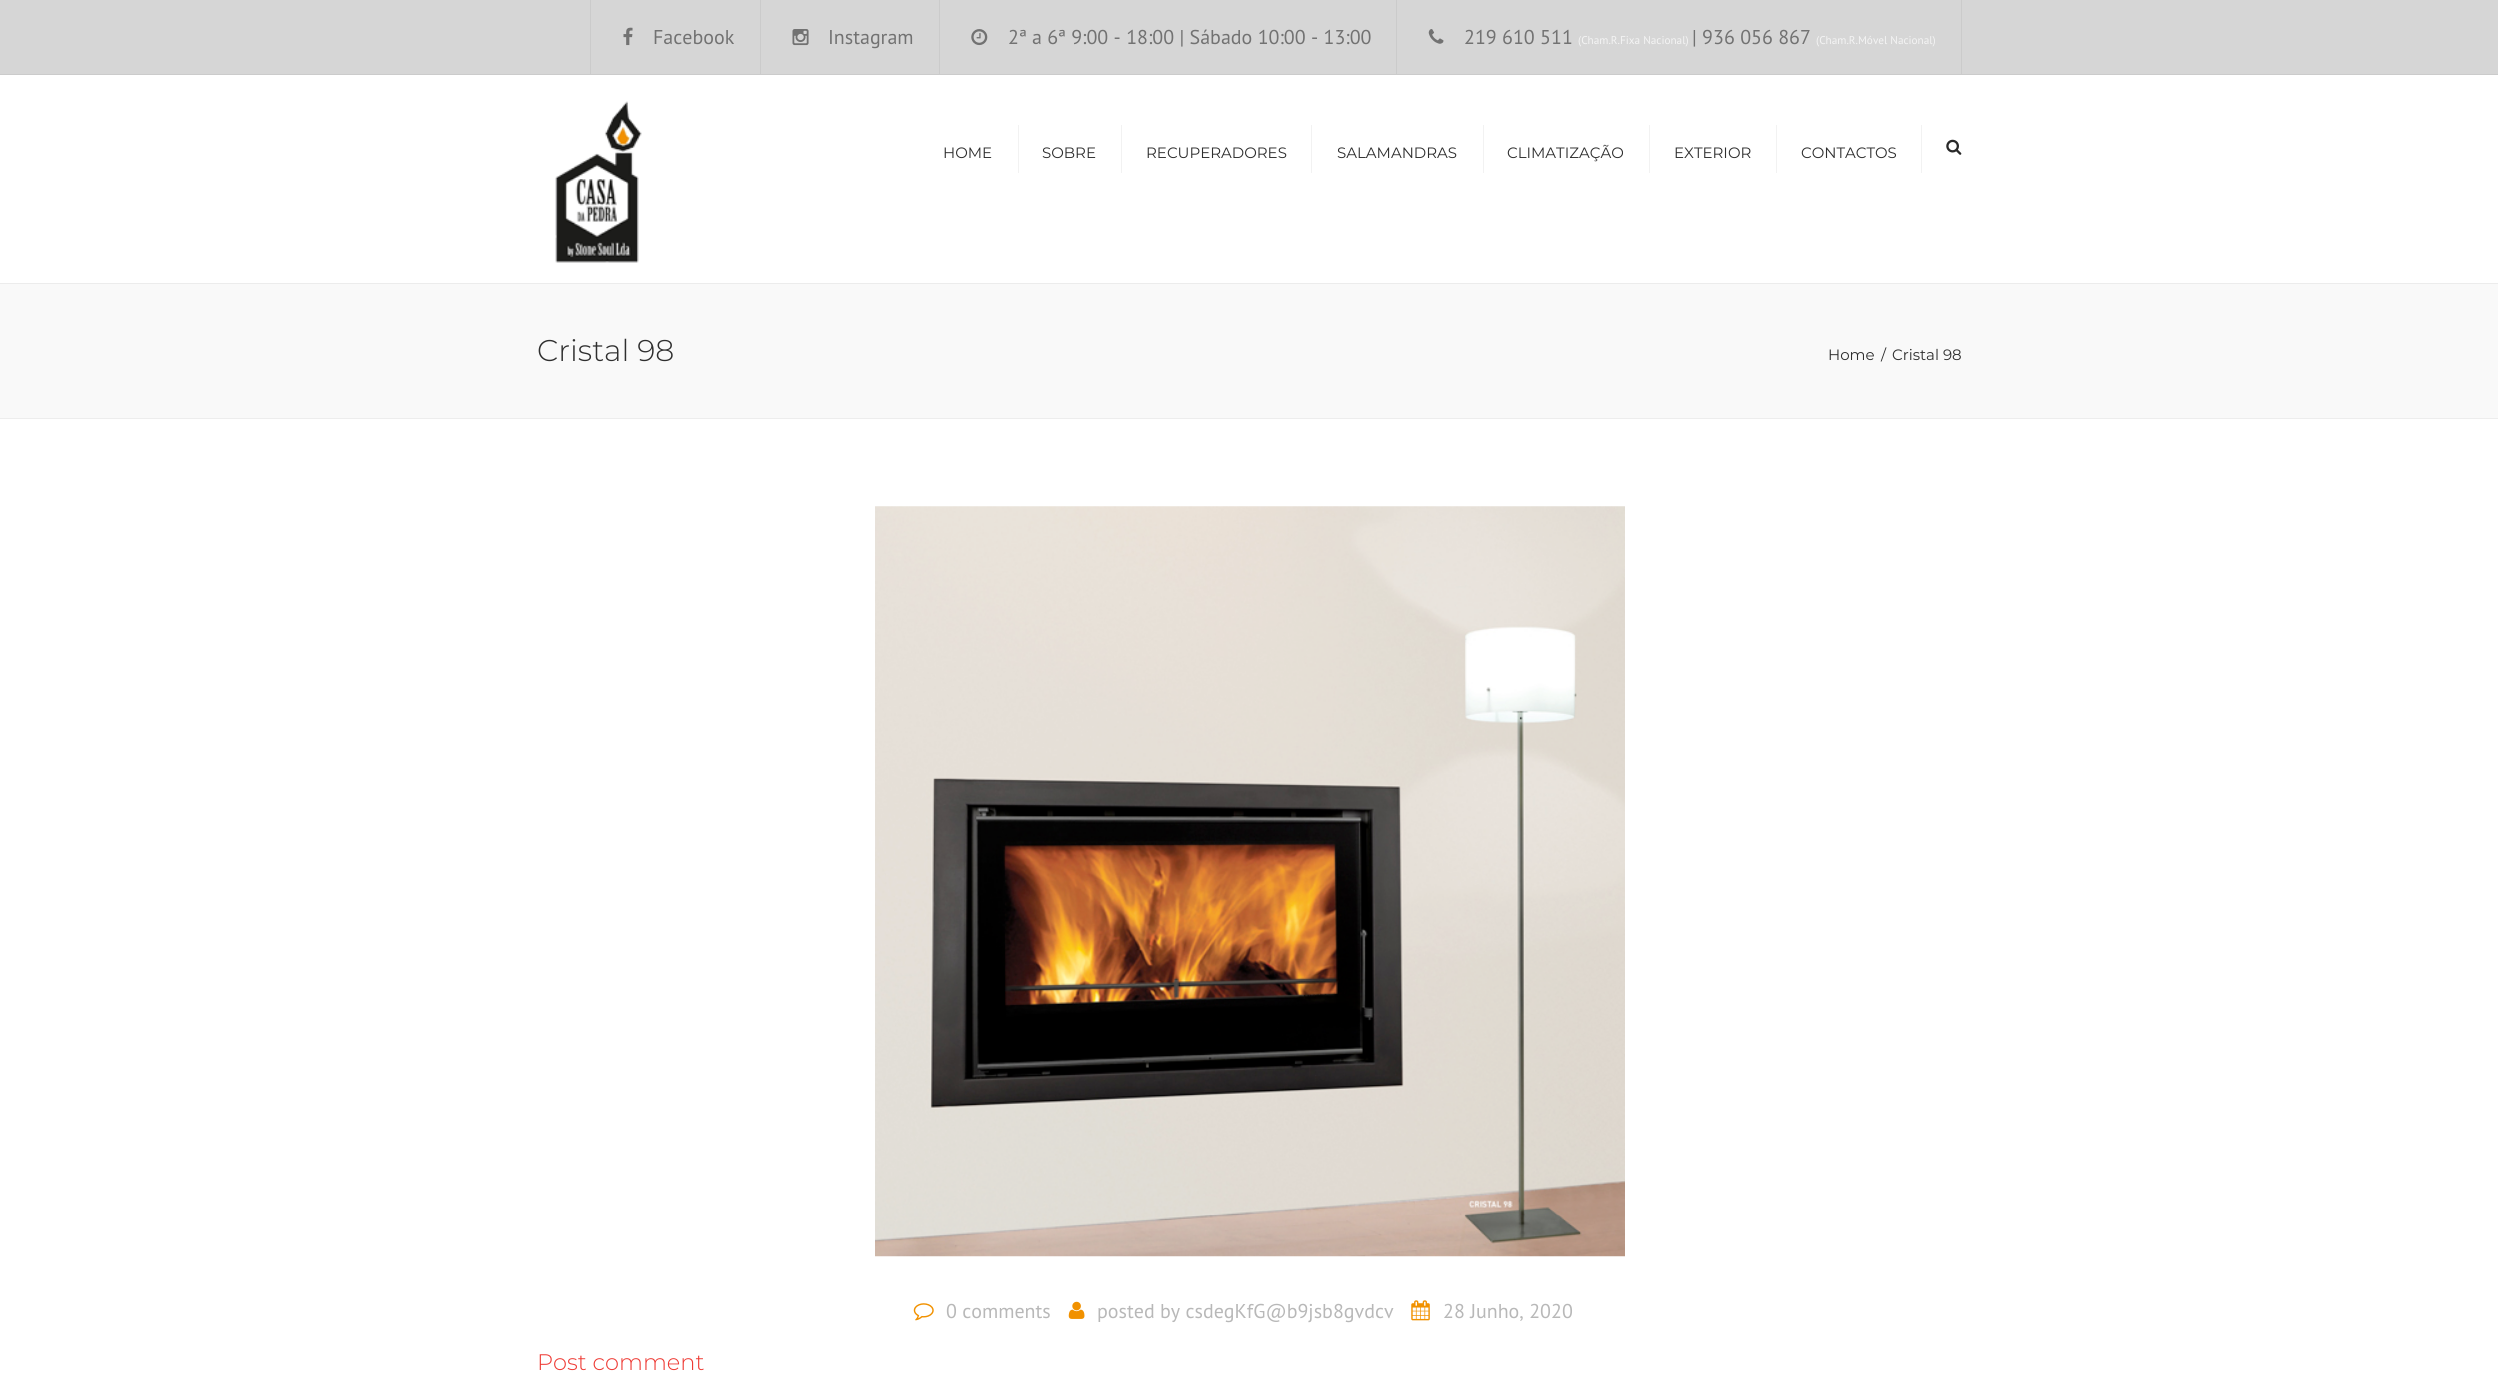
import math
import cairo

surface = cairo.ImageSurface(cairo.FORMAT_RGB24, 2498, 1378)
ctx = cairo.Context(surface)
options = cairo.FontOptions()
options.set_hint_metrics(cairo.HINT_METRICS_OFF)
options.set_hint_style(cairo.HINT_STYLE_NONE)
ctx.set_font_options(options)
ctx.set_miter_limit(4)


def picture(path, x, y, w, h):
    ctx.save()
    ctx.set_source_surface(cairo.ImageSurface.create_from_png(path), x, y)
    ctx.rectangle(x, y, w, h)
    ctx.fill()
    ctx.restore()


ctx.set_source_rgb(1, 1, 1)
ctx.paint()
ctx.set_source_rgb(0.839, 0.839, 0.839)
ctx.rectangle(0, 0, 2498, 74)
ctx.fill()
ctx.set_source_rgb(0.796, 0.796, 0.796)
ctx.rectangle(0, 74, 2498, 1)
ctx.fill()
ctx.rectangle(760, 0, 1, 74)
ctx.fill()
ctx.rectangle(590, 0, 1, 74)
ctx.fill()
picture("img1.png", 623, 27, 10, 19)
ctx.select_font_face("PT Sans")
ctx.set_font_size(20)
ctx.set_source_rgb(0.447, 0.447, 0.447)
ctx.move_to(653, 44)
ctx.show_text("Facebook")
ctx.set_source_rgb(0.796, 0.796, 0.796)
ctx.rectangle(939, 0, 1, 74)
ctx.fill()
picture("img2.png", 792, 29, 17, 17)
ctx.set_source_rgb(0.447, 0.447, 0.447)
ctx.move_to(828, 44)
ctx.show_text("Instagram")
ctx.set_source_rgb(0.796, 0.796, 0.796)
ctx.rectangle(1396, 0, 1, 74)
ctx.fill()
picture("img3.png", 971, 29, 17, 17)
ctx.set_source_rgb(0.447, 0.447, 0.447)
ctx.move_to(1008, 44)
ctx.show_text("2ª a 6ª 9:00 - 18:00 | Sábado 10:00 - 13:00")
ctx.set_source_rgb(0.796, 0.796, 0.796)
ctx.rectangle(1961, 0, 1, 74)
ctx.fill()
picture("img4.png", 1428, 29, 16, 15)
ctx.set_source_rgb(0.447, 0.447, 0.447)
ctx.move_to(1464, 44)
ctx.show_text("219 610 511")
ctx.set_font_size(11.25)
ctx.set_source_rgb(0.957, 0.957, 0.957)
ctx.move_to(1578, 44)
ctx.show_text("(Cham.R.Fixa Nacional)")
ctx.set_font_size(20)
ctx.set_source_rgb(0.447, 0.447, 0.447)
ctx.move_to(1692, 44)
ctx.show_text("| 936 056 867")
ctx.set_font_size(11.25)
ctx.set_source_rgb(0.957, 0.957, 0.957)
ctx.move_to(1816, 44)
ctx.show_text("(Cham.R.Móvel Nacional)")
ctx.set_source_rgb(0.925, 0.925, 0.925)
ctx.rectangle(0, 283, 2498, 1)
ctx.fill()
picture("img5.png", 555, 101, 87, 162)
ctx.select_font_face("Montserrat")
ctx.set_font_size(15)
ctx.set_source_rgb(0.184, 0.184, 0.184)
ctx.move_to(943, 158)
ctx.show_text("HOME")
ctx.set_source_rgb(0.949, 0.949, 0.949)
ctx.rectangle(1018, 125, 1, 48)
ctx.fill()
ctx.set_source_rgb(0.184, 0.184, 0.184)
ctx.move_to(1042, 158)
ctx.show_text("SOBRE")
ctx.set_source_rgb(0.949, 0.949, 0.949)
ctx.rectangle(1121, 125, 1, 48)
ctx.fill()
ctx.set_source_rgb(0.184, 0.184, 0.184)
ctx.move_to(1146, 158)
ctx.show_text("RECUPERADORES")
ctx.set_source_rgb(0.949, 0.949, 0.949)
ctx.rectangle(1311, 125, 1, 48)
ctx.fill()
ctx.set_source_rgb(0.184, 0.184, 0.184)
ctx.move_to(1337, 158)
ctx.show_text("SALAMANDRAS")
ctx.set_source_rgb(0.949, 0.949, 0.949)
ctx.rectangle(1483, 125, 1, 48)
ctx.fill()
ctx.set_source_rgb(0.184, 0.184, 0.184)
ctx.move_to(1507, 158)
ctx.show_text("CLIMATIZAÇÃO")
ctx.set_source_rgb(0.949, 0.949, 0.949)
ctx.rectangle(1649, 125, 1, 48)
ctx.fill()
ctx.set_source_rgb(0.184, 0.184, 0.184)
ctx.move_to(1674, 158)
ctx.show_text("EXTERIOR")
ctx.set_source_rgb(0.949, 0.949, 0.949)
ctx.rectangle(1776, 125, 1, 48)
ctx.fill()
ctx.set_source_rgb(0.184, 0.184, 0.184)
ctx.move_to(1801, 158)
ctx.show_text("CONTACTOS")
ctx.set_source_rgb(0.949, 0.949, 0.949)
ctx.rectangle(1921, 125, 1, 48)
ctx.fill()
picture("img6.png", 1946, 139, 16, 16)
ctx.set_source_rgb(0.973, 0.973, 0.973)
ctx.rectangle(0, 284, 2498, 134)
ctx.fill()
ctx.set_source_rgb(0.929, 0.929, 0.929)
ctx.rectangle(0, 418, 2498, 1)
ctx.fill()
ctx.select_font_face("Montserrat Light")
ctx.set_font_size(30)
ctx.set_source_rgb(0.184, 0.184, 0.184)
ctx.move_to(537, 361)
ctx.show_text("Cristal 98")
ctx.select_font_face("Montserrat")
ctx.set_font_size(15)
ctx.move_to(1828, 360)
ctx.show_text("Home")
ctx.move_to(1881, 360)
ctx.show_text("/")
ctx.move_to(1892, 360)
ctx.show_text("Cristal 98")
picture("img7.png", 875, 506, 750, 751)
picture("img8.png", 913, 1303, 21, 18)
ctx.select_font_face("PT Sans")
ctx.set_font_size(20)
ctx.set_source_rgb(0.722, 0.722, 0.722)
ctx.move_to(946, 1318)
ctx.show_text("0 comments")
picture("img9.png", 1068, 1301, 17, 18)
ctx.move_to(1097, 1318)
ctx.show_text("posted by csdegKfG@b9jsb8gvdcv")
picture("img10.png", 1411, 1300, 19, 21)
ctx.move_to(1443, 1318)
ctx.show_text("28 Junho, 2020")
ctx.select_font_face("Montserrat Light")
ctx.set_font_size(22.5)
ctx.set_source_rgb(0.933, 0.227, 0.204)
ctx.move_to(537, 1370)
ctx.show_text("Post comment")
surface.write_to_png("page.png")
